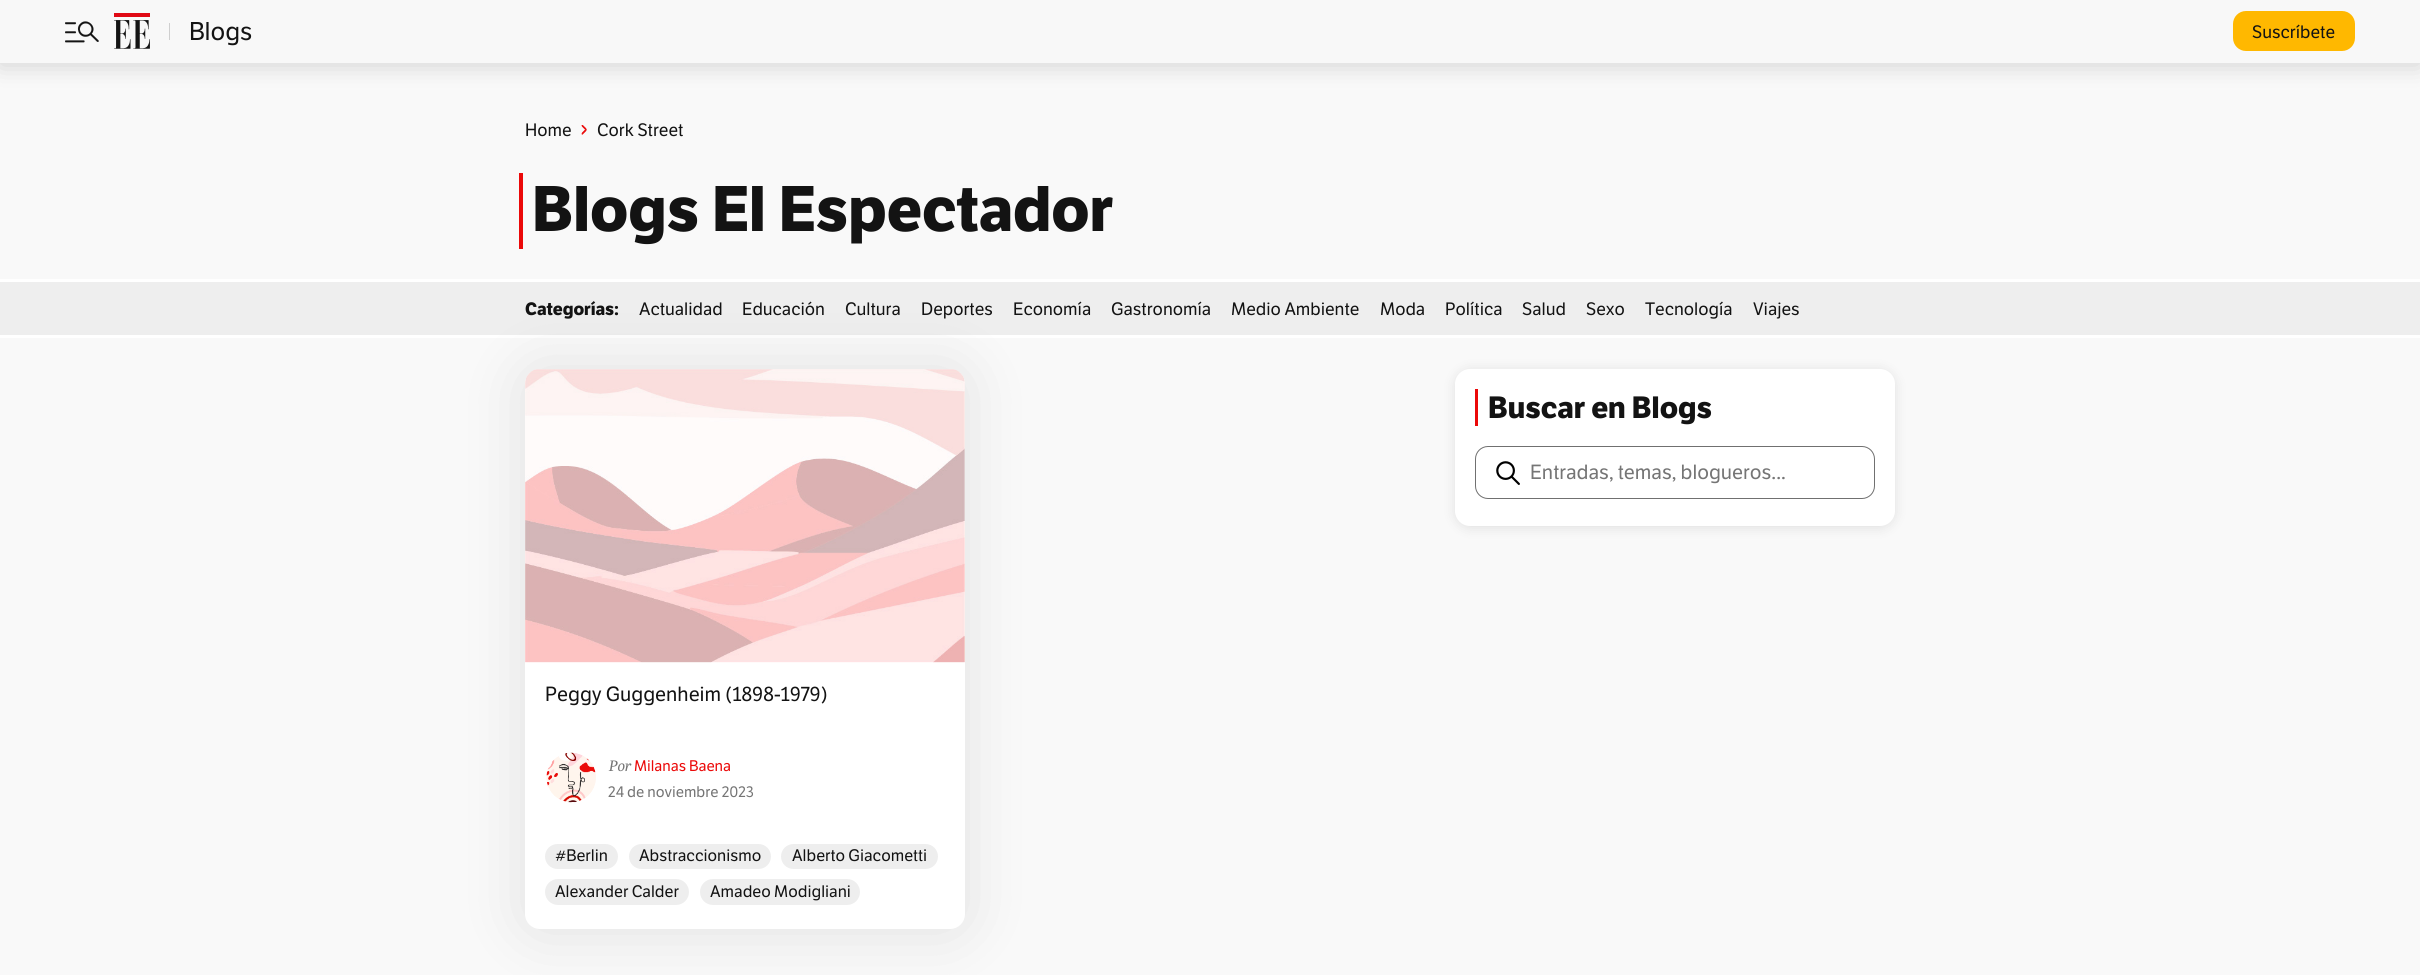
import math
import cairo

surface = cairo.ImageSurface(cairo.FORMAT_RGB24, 2420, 975)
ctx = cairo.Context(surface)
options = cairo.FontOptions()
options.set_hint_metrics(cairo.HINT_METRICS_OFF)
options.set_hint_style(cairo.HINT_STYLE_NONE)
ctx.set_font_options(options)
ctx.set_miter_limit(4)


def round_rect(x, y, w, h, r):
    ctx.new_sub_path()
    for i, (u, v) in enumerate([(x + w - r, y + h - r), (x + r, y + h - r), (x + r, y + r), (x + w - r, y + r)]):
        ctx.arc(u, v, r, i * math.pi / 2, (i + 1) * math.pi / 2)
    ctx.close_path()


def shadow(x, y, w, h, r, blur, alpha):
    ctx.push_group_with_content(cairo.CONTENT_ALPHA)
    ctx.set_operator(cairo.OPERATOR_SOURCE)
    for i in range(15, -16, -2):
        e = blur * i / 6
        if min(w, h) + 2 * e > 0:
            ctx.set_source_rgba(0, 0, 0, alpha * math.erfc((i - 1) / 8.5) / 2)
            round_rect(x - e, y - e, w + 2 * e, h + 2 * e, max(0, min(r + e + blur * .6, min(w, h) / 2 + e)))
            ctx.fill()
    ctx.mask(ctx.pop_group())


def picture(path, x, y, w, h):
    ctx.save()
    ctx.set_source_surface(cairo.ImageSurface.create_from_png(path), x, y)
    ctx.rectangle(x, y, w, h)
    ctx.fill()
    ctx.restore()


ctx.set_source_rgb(0.973, 0.973, 0.973)
ctx.paint()
ctx.set_source_rgb(0, 0, 0)
shadow(0, 3, 2420, 62, 0, 12.5, 0.16)
ctx.set_source_rgb(0.969, 0.969, 0.969)
ctx.rectangle(0, 0, 2420, 63)
ctx.fill()
picture("img1.png", 65, 21, 34, 22)
picture("img2.png", 114, 13, 36, 36)
ctx.set_source_rgb(0.812, 0.812, 0.812)
ctx.rectangle(169, 23, 1, 17)
ctx.fill()
ctx.select_font_face("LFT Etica")
ctx.set_font_size(25)
ctx.set_source_rgb(0.078, 0.078, 0.078)
ctx.move_to(189, 40)
ctx.show_text("Blogs")
ctx.set_source_rgb(1, 0.722, 0)
round_rect(2233, 11, 122, 40, 13)
ctx.fill()
ctx.set_font_size(17.5)
ctx.set_source_rgb(0.078, 0.078, 0.078)
ctx.move_to(2252, 38)
ctx.show_text("Suscríbete")
ctx.move_to(525, 136)
ctx.show_text("Home")
picture("img3.png", 581, 125, 6, 10)
ctx.move_to(597, 136)
ctx.show_text("Cork Street")
ctx.set_source_rgb(0.918, 0.039, 0.039)
ctx.rectangle(519, 173, 4, 76)
ctx.fill()
ctx.select_font_face("LFT Etica", cairo.FONT_SLANT_NORMAL, cairo.FONT_WEIGHT_BOLD)
ctx.set_font_size(62.5)
ctx.set_source_rgb(0.078, 0.078, 0.078)
ctx.move_to(532, 231)
ctx.show_text("Blogs El Espectador")
ctx.set_source_rgb(0.933, 0.933, 0.933)
ctx.rectangle(0, 282, 2420, 53)
ctx.fill()
ctx.set_source_rgb(1, 1, 1)
ctx.rectangle(0, 279, 2420, 3)
ctx.fill()
ctx.rectangle(0, 335, 2420, 3)
ctx.fill()
ctx.set_source_rgb(0, 0, 0)
shadow(525, 370, 440, 560, 15, 31, 0.1)
ctx.set_font_size(17.5)
ctx.set_source_rgb(0.078, 0.078, 0.078)
ctx.move_to(525, 315)
ctx.show_text("Categorías:")
ctx.select_font_face("LFT Etica")
ctx.move_to(639, 315)
ctx.show_text("Actualidad")
ctx.move_to(742, 315)
ctx.show_text("Educación")
ctx.move_to(845, 315)
ctx.show_text("Cultura")
ctx.move_to(921, 315)
ctx.show_text("Deportes")
ctx.move_to(1013, 315)
ctx.show_text("Economía")
ctx.move_to(1111, 315)
ctx.show_text("Gastronomía")
ctx.move_to(1231, 315)
ctx.show_text("Medio Ambiente")
ctx.move_to(1380, 315)
ctx.show_text("Moda")
ctx.move_to(1445, 315)
ctx.show_text("Política")
ctx.move_to(1522, 315)
ctx.show_text("Salud")
ctx.move_to(1586, 315)
ctx.show_text("Sexo")
ctx.move_to(1645, 315)
ctx.show_text("Tecnología")
ctx.move_to(1753, 315)
ctx.show_text("Viajes")
ctx.set_source_rgb(0, 0, 0)
shadow(1455, 370, 440, 158, 15, 6, 0.1)
ctx.set_source_rgb(1, 1, 1)
round_rect(1455, 369, 440, 157, 15)
ctx.fill()
ctx.set_source_rgb(0.918, 0.039, 0.039)
ctx.rectangle(1475, 389, 3, 37)
ctx.fill()
ctx.select_font_face("LFT Etica", cairo.FONT_SLANT_NORMAL, cairo.FONT_WEIGHT_BOLD)
ctx.set_font_size(30)
ctx.set_source_rgb(0.078, 0.078, 0.078)
ctx.move_to(1488, 418)
ctx.show_text("Buscar en Blogs")
round_rect(1475.5, 446.5, 399, 52, 12.5)
ctx.set_source_rgb(0.439, 0.439, 0.439)
ctx.set_line_width(1)
ctx.stroke()
picture("img4.png", 1496, 461, 24, 24)
ctx.select_font_face("LFT Etica")
ctx.set_font_size(20)
ctx.set_source_rgb(0.459, 0.459, 0.459)
ctx.move_to(1530, 479)
ctx.show_text("Entradas, temas, blogueros...")
ctx.set_source_rgb(1, 1, 1)
round_rect(525, 369, 440, 560, 15)
ctx.fill()
picture("img5.png", 525, 369, 440, 294)
ctx.set_source_rgb(0.078, 0.078, 0.078)
ctx.move_to(545, 701)
ctx.show_text("Peggy Guggenheim (1898-1979)")
picture("img6.png", 546, 752, 50, 51)
ctx.select_font_face("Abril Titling", cairo.FONT_SLANT_ITALIC)
ctx.set_font_size(15)
ctx.set_source_rgb(0.459, 0.459, 0.459)
ctx.move_to(609, 771)
ctx.show_text("Por")
ctx.select_font_face("LFT Etica")
ctx.set_source_rgb(0.918, 0.039, 0.039)
ctx.move_to(634, 771)
ctx.show_text("Milanas Baena")
ctx.set_source_rgb(0.459, 0.459, 0.459)
ctx.move_to(608, 797)
ctx.show_text("24 de noviembre 2023")
ctx.set_source_rgb(0.933, 0.933, 0.933)
round_rect(545, 844, 73, 25, 12.5)
ctx.fill()
ctx.set_font_size(16.25)
ctx.set_source_rgb(0.078, 0.078, 0.078)
ctx.move_to(555, 861)
ctx.show_text("#Berlin")
ctx.set_source_rgb(0.933, 0.933, 0.933)
round_rect(629, 844, 142, 25, 12.5)
ctx.fill()
ctx.set_source_rgb(0.078, 0.078, 0.078)
ctx.move_to(639, 861)
ctx.show_text("Abstraccionismo")
ctx.set_source_rgb(0.933, 0.933, 0.933)
round_rect(781, 844, 157, 25, 12.5)
ctx.fill()
ctx.set_source_rgb(0.078, 0.078, 0.078)
ctx.move_to(792, 861)
ctx.show_text("Alberto Giacometti")
ctx.set_source_rgb(0.933, 0.933, 0.933)
round_rect(545, 879, 144, 26, 13)
ctx.fill()
ctx.set_source_rgb(0.078, 0.078, 0.078)
ctx.move_to(555, 897)
ctx.show_text("Alexander Calder")
ctx.set_source_rgb(0.933, 0.933, 0.933)
round_rect(700, 879, 160, 26, 13)
ctx.fill()
ctx.set_source_rgb(0.078, 0.078, 0.078)
ctx.move_to(710, 897)
ctx.show_text("Amadeo Modigliani")
surface.write_to_png("page.png")
